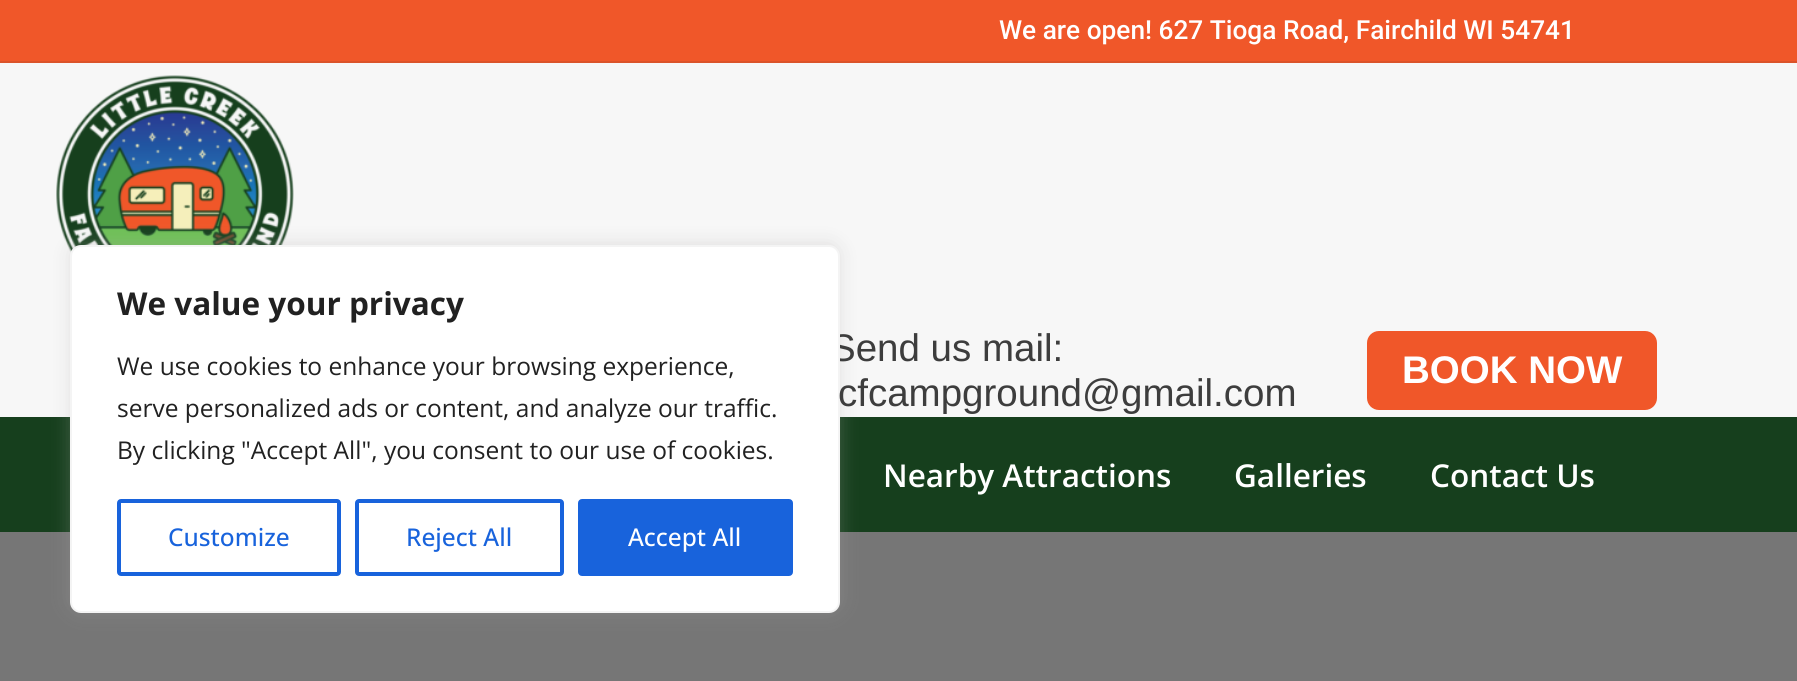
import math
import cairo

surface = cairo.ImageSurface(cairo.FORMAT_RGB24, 1797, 681)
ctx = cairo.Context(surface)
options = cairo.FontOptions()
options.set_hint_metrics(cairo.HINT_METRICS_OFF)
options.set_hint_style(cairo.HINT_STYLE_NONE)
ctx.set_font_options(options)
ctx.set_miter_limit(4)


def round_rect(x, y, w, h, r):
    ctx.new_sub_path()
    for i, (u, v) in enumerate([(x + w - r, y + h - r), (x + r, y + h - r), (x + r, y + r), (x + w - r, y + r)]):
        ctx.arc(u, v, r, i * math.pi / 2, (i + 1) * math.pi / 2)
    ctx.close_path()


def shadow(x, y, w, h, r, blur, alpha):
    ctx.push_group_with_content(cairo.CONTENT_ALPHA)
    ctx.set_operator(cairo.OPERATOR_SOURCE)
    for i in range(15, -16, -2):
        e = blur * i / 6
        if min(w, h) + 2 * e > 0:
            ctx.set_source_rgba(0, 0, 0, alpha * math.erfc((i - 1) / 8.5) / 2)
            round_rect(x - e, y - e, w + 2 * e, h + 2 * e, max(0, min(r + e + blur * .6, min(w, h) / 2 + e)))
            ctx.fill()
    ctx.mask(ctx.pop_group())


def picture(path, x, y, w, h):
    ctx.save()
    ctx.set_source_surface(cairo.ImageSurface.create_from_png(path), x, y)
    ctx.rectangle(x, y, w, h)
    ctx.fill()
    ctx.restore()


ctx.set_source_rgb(0.965, 0.965, 0.965)
ctx.paint()
picture("img1.png", 56, 75, 238, 178)
ctx.set_source_rgb(0.086, 0.247, 0.114)
ctx.rectangle(0, 417, 1797, 115)
ctx.fill()
ctx.set_source_rgb(0.463, 0.463, 0.463)
ctx.rectangle(0, 532, 1797, 149)
ctx.fill()
ctx.set_source_rgb(0.675, 0.671, 0.671)
shadow(70, 243, 770, 368, 11, 9, 0.3)
ctx.select_font_face("Liberation Sans")
ctx.set_font_size(38.5)
ctx.set_source_rgb(0.239, 0.239, 0.239)
ctx.move_to(830, 361)
ctx.show_text("Send us mail:")
ctx.set_source_rgb(1, 1, 1)
round_rect(71, 246, 768, 366, 10)
ctx.fill_preserve()
ctx.set_source_rgb(0.957, 0.957, 0.957)
ctx.stroke()
ctx.select_font_face("Open Sans", cairo.FONT_SLANT_NORMAL, cairo.FONT_WEIGHT_BOLD)
ctx.set_font_size(31.5)
ctx.set_source_rgb(0.129, 0.129, 0.129)
ctx.move_to(117, 315)
ctx.show_text("We value your privacy")
ctx.select_font_face("Open Sans")
ctx.set_font_size(24.5)
ctx.move_to(117, 375)
ctx.show_text("We use cookies to enhance your browsing experience,")
ctx.move_to(117, 417)
ctx.show_text("serve personalized ads or content, and analyze our traffic.")
ctx.move_to(117, 459)
ctx.show_text("By clicking \"Accept All\", you consent to our use of cookies.")
round_rect(119, 501, 220, 73, 2)
ctx.set_source_rgb(0.094, 0.388, 0.863)
ctx.set_line_width(4)
ctx.stroke()
ctx.select_font_face("Open Sans Medium")
ctx.move_to(168, 546)
ctx.show_text("Customize")
round_rect(357, 501, 205, 73, 2)
ctx.stroke()
ctx.move_to(406, 546)
ctx.show_text("Reject All")
round_rect(580, 501, 211, 73, 2)
ctx.fill_preserve()
ctx.stroke()
ctx.set_source_rgb(1, 1, 1)
ctx.move_to(628, 546)
ctx.show_text("Accept All")
ctx.set_source_rgb(0.941, 0.341, 0.161)
ctx.rectangle(0, 0, 1797, 61)
ctx.fill()
ctx.select_font_face("Roboto Medium")
ctx.set_font_size(26.25)
ctx.set_source_rgb(1, 1, 1)
ctx.move_to(999, 39)
ctx.show_text("We are open! 627 Tioga Road, Fairchild WI 54741")
ctx.set_source_rgb(0.859, 0.325, 0.165)
ctx.rectangle(0, 61, 1797, 2)
ctx.fill()
ctx.select_font_face("Liberation Sans")
ctx.set_font_size(38.5)
ctx.set_source_rgb(0.239, 0.239, 0.239)
ctx.move_to(838, 406)
ctx.show_text("cfcampground@gmail.com")
ctx.set_source_rgb(0.941, 0.341, 0.161)
round_rect(1367, 331, 290, 79, 12)
ctx.fill()
ctx.select_font_face("Liberation Sans", cairo.FONT_SLANT_NORMAL, cairo.FONT_WEIGHT_BOLD)
ctx.set_source_rgb(1, 1, 1)
ctx.move_to(1402, 383)
ctx.show_text("BOOK NOW")
ctx.select_font_face("Open Sans SemiBold")
ctx.set_font_size(31.5)
ctx.move_to(883, 487)
ctx.show_text("Nearby Attractions")
ctx.move_to(1234, 487)
ctx.show_text("Galleries")
ctx.move_to(1430, 487)
ctx.show_text("Contact Us")
surface.write_to_png("page.png")
